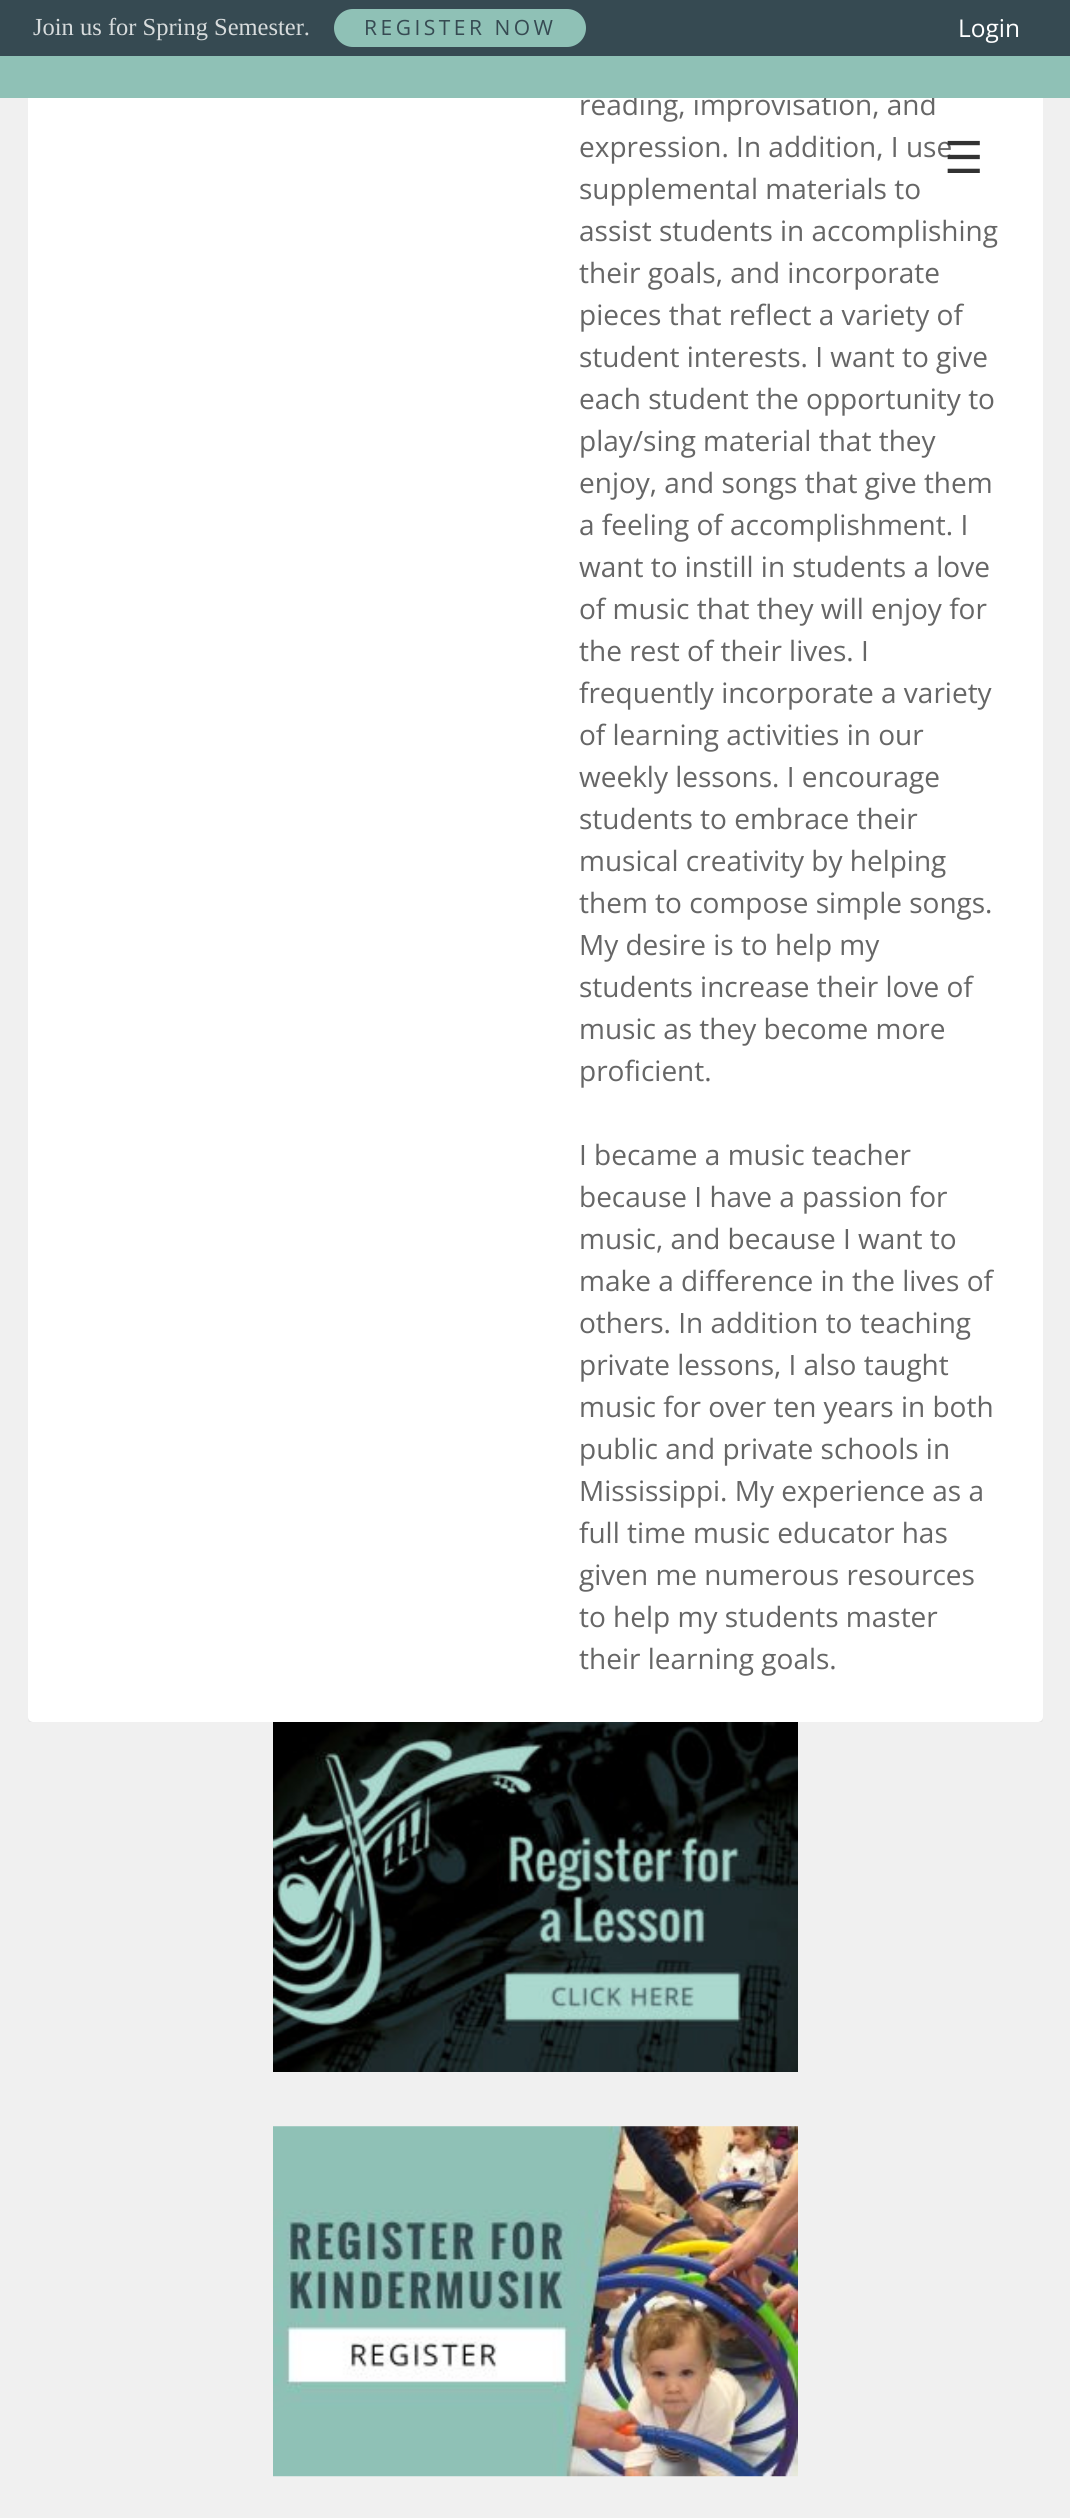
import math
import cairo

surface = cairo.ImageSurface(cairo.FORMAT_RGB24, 1070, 2518)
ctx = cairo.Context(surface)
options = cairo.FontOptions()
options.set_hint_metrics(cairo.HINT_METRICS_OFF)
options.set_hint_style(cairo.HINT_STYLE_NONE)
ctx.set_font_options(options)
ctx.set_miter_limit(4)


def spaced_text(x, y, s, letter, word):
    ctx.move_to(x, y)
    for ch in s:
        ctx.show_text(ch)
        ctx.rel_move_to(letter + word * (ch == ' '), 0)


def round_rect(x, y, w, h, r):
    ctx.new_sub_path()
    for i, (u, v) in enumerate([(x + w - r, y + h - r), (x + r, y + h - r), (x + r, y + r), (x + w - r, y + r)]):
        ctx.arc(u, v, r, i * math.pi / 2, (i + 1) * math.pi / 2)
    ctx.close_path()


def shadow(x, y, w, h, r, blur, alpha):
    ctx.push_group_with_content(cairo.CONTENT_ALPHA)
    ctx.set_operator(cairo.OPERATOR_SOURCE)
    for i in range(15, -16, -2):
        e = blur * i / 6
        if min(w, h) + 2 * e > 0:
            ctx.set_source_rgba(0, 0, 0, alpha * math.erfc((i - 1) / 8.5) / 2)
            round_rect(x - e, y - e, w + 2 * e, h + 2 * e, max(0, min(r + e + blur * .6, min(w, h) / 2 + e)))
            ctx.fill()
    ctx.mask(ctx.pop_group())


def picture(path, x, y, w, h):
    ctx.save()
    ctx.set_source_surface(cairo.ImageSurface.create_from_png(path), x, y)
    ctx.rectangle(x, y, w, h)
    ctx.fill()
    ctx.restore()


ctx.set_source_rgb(0.941, 0.941, 0.941)
ctx.paint()
ctx.set_source_rgb(1, 1, 1)
ctx.rectangle(28, 1717, 1015, 5)
ctx.fill()
picture("img1.png", 273, 1722, 525, 350)
ctx.save()
ctx.rectangle(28, 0, 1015, 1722)
ctx.clip()
ctx.set_source_rgb(0, 0, 0)
shadow(28, -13, 1015, 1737, 5, 2.5, 0.2)
ctx.restore()
round_rect(28, -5, 1015, 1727, 5)
ctx.fill()
ctx.select_font_face("Open Sans")
ctx.set_font_size(28)
ctx.set_source_rgb(0.4, 0.4, 0.4)
ctx.move_to(579, 115)
ctx.show_text("reading, improvisation, and")
ctx.set_source_rgb(0.561, 0.757, 0.714)
ctx.rectangle(0, 56, 1070, 42)
ctx.fill()
ctx.set_source_rgb(0.212, 0.29, 0.322)
ctx.rectangle(0, 0, 1070, 56)
ctx.fill()
ctx.select_font_face("Liberation Serif")
ctx.set_font_size(24.5)
ctx.set_source_rgb(0.843, 0.859, 0.863)
ctx.move_to(33, 35)
ctx.show_text("Join us for Spring Semester.")
ctx.set_source_rgb(0.561, 0.757, 0.714)
round_rect(336, 11, 248, 34, 17)
ctx.fill_preserve()
ctx.set_line_width(4)
ctx.stroke()
ctx.select_font_face("Open Sans")
ctx.set_font_size(21)
ctx.set_source_rgb(0.212, 0.29, 0.322)
spaced_text(364, 35, "REGISTER NOW", 3.5, 0)
ctx.set_font_size(24.5)
ctx.set_source_rgb(1, 1, 1)
ctx.move_to(958, 37)
ctx.show_text("Login")
ctx.set_font_size(28)
ctx.set_source_rgb(0.4, 0.4, 0.4)
ctx.move_to(579, 157)
ctx.show_text("expression. In addition, I use")
ctx.select_font_face("DejaVu Sans")
ctx.set_font_size(44)
ctx.set_source_rgb(0.196, 0.196, 0.196)
ctx.move_to(944, 173)
ctx.show_text("☰")
ctx.select_font_face("Open Sans")
ctx.set_font_size(28)
ctx.set_source_rgb(0.4, 0.4, 0.4)
ctx.move_to(579, 199)
ctx.show_text("supplemental materials to")
ctx.move_to(579, 241)
ctx.show_text("assist students in accomplishing")
ctx.move_to(579, 283)
ctx.show_text("their goals, and incorporate")
ctx.move_to(579, 325)
ctx.show_text("pieces that reflect a variety of")
ctx.move_to(579, 367)
ctx.show_text("student interests. I want to give")
ctx.move_to(579, 409)
ctx.show_text("each student the opportunity to")
ctx.move_to(579, 451)
ctx.show_text("play/sing material that they")
ctx.move_to(579, 493)
ctx.show_text("enjoy, and songs that give them")
ctx.move_to(579, 535)
ctx.show_text("a feeling of accomplishment. I")
ctx.move_to(579, 577)
ctx.show_text("want to instill in students a love")
ctx.move_to(579, 619)
ctx.show_text("of music that they will enjoy for")
ctx.move_to(579, 661)
ctx.show_text("the rest of their lives. I")
ctx.move_to(579, 703)
ctx.show_text("frequently incorporate a variety")
ctx.move_to(579, 745)
ctx.show_text("of learning activities in our")
ctx.move_to(579, 787)
ctx.show_text("weekly lessons. I encourage")
ctx.move_to(579, 829)
ctx.show_text("students to embrace their")
ctx.move_to(579, 871)
ctx.show_text("musical creativity by helping")
ctx.move_to(579, 913)
ctx.show_text("them to compose simple songs.")
ctx.move_to(579, 955)
ctx.show_text("My desire is to help my")
ctx.move_to(579, 997)
ctx.show_text("students increase their love of")
ctx.move_to(579, 1039)
ctx.show_text("music as they become more")
ctx.move_to(579, 1081)
ctx.show_text("proficient.")
ctx.move_to(579, 1165)
ctx.show_text("I became a music teacher")
ctx.move_to(579, 1207)
ctx.show_text("because I have a passion for")
ctx.move_to(579, 1249)
ctx.show_text("music, and because I want to")
ctx.move_to(579, 1291)
ctx.show_text("make a difference in the lives of")
ctx.move_to(579, 1333)
ctx.show_text("others. In addition to teaching")
ctx.move_to(579, 1375)
ctx.show_text("private lessons, I also taught")
ctx.move_to(579, 1417)
ctx.show_text("music for over ten years in both")
ctx.move_to(579, 1459)
ctx.show_text("public and private schools in")
ctx.move_to(579, 1501)
ctx.show_text("Mississippi. My experience as a")
ctx.move_to(579, 1543)
ctx.show_text("full time music educator has")
ctx.move_to(579, 1585)
ctx.show_text("given me numerous resources")
ctx.move_to(579, 1627)
ctx.show_text("to help my students master")
ctx.move_to(579, 1669)
ctx.show_text("their learning goals.")
picture("img2.png", 273, 2126, 525, 351)
surface.write_to_png("page.png")
